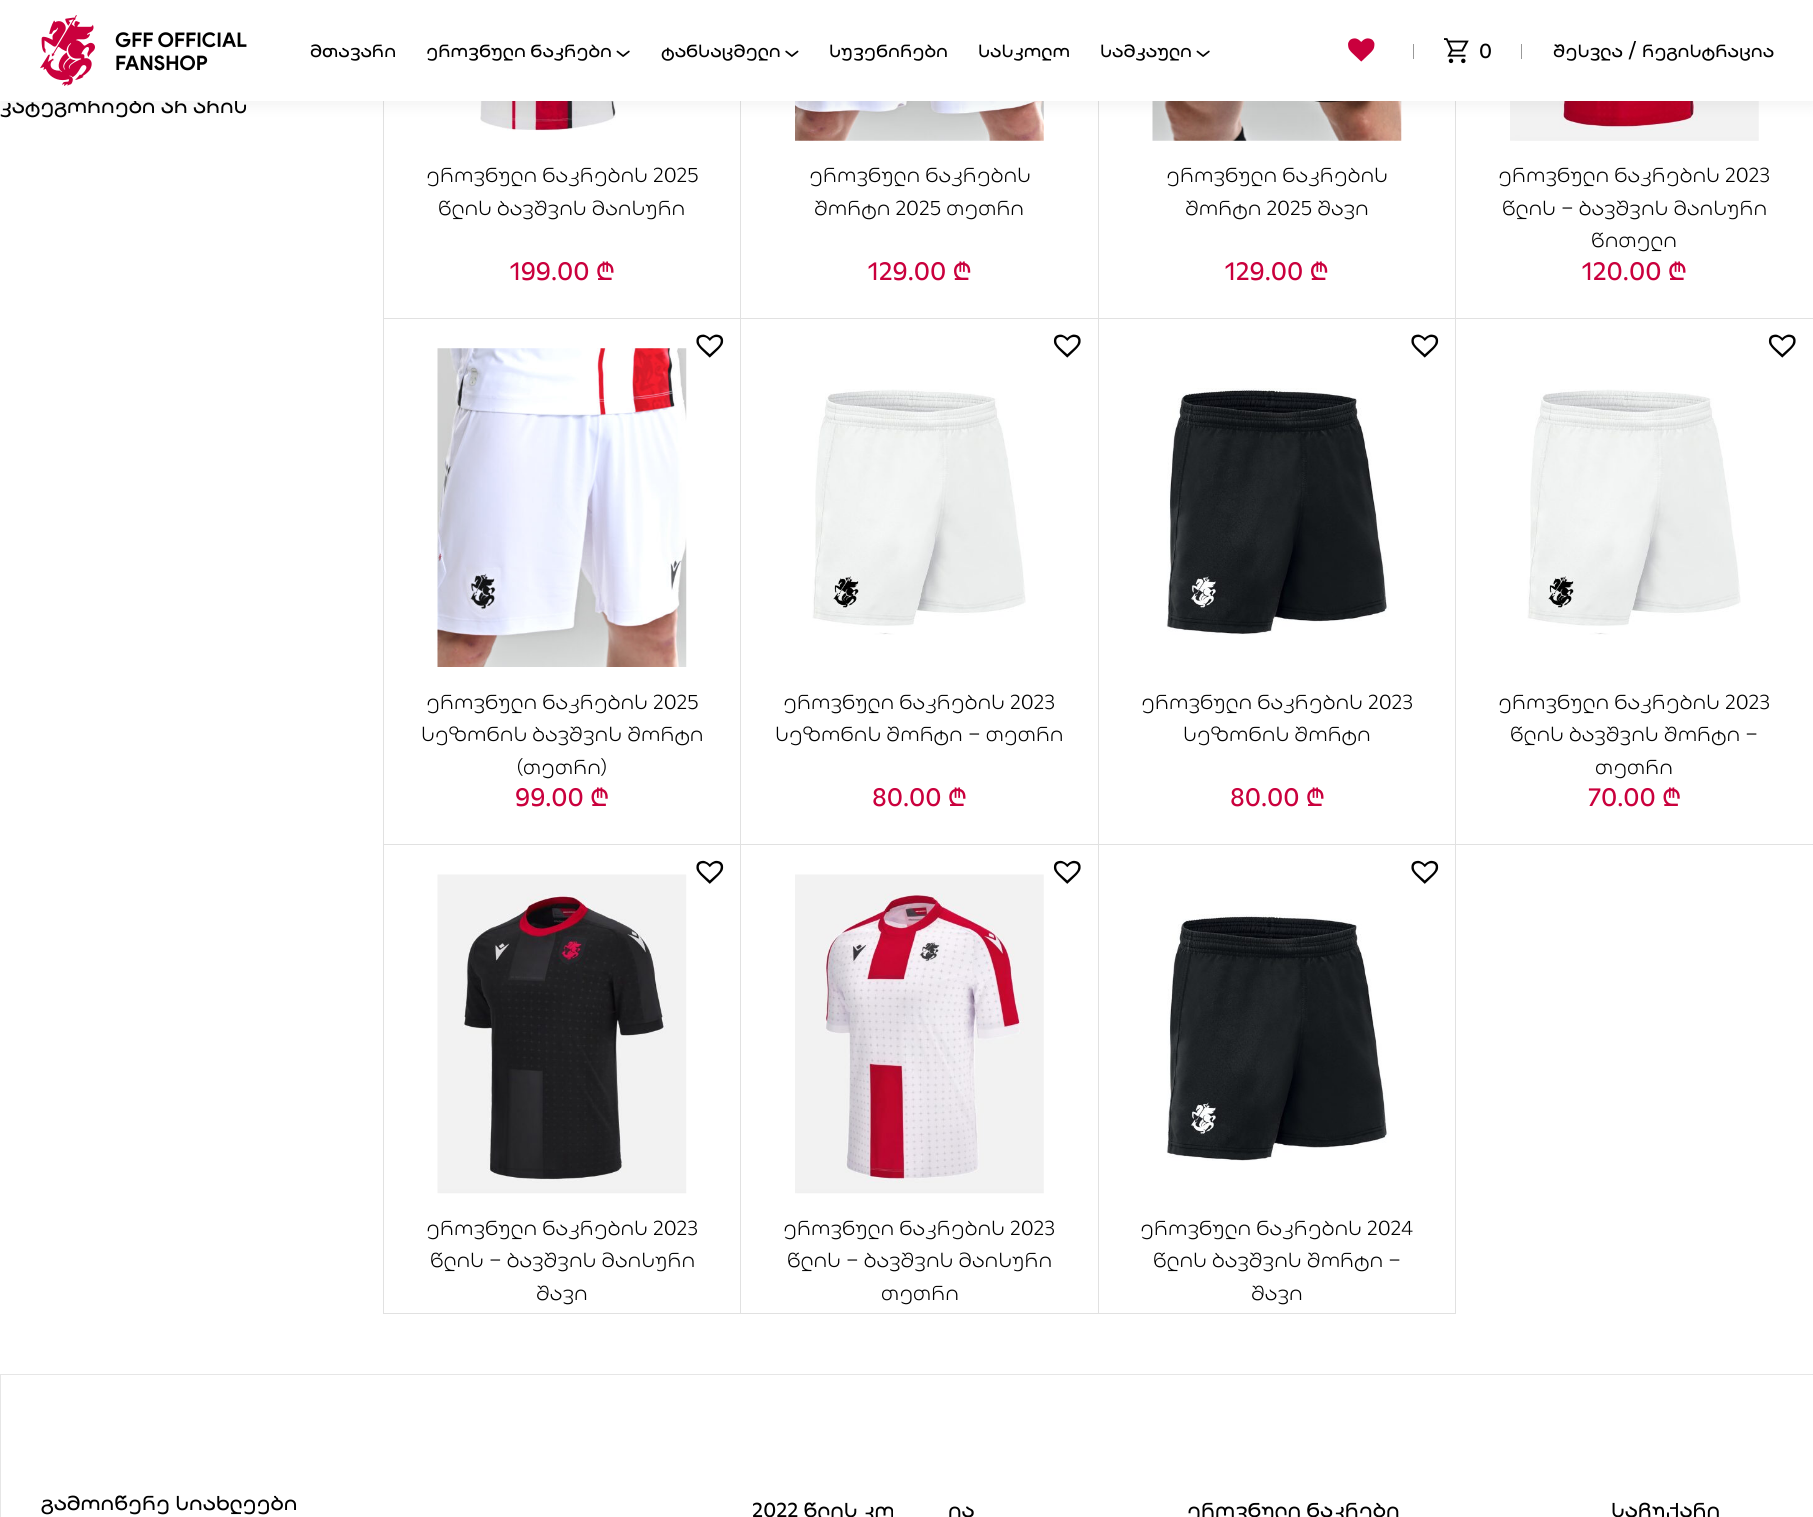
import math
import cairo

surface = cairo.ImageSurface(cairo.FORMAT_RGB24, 1813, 1517)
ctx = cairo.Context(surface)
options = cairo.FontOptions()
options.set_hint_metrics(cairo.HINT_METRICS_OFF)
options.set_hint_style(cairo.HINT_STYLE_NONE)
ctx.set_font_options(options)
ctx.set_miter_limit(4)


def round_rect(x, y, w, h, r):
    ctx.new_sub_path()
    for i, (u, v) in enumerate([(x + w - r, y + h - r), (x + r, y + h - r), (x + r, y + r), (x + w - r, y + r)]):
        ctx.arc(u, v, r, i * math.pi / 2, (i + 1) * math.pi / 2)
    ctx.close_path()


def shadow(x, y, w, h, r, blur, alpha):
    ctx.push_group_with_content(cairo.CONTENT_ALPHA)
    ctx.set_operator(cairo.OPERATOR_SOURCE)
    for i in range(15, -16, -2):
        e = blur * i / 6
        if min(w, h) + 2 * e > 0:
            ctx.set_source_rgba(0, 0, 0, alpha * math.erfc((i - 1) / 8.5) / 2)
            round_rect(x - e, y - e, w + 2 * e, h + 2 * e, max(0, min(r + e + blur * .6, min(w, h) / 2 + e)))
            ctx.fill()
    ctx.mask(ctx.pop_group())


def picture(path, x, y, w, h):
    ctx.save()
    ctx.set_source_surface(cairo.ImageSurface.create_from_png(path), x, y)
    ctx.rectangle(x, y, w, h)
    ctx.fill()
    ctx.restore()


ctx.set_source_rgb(1, 1, 1)
ctx.paint()
ctx.set_source_rgb(0.882, 0.882, 0.882)
ctx.rectangle(383, 101, 1, 1213)
ctx.fill()
ctx.rectangle(740, 101, 1, 1213)
ctx.fill()
picture("img7.png", 480, 101, 136, 30)
ctx.rectangle(1098, 101, 1, 1213)
ctx.fill()
picture("img8.png", 795, 101, 249, 40)
ctx.rectangle(1455, 101, 1, 1213)
ctx.fill()
picture("img9.png", 1152, 101, 250, 40)
picture("img10.png", 1510, 101, 249, 40)
ctx.set_source_rgb(0, 0, 0)
shadow(0, 5, 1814, 101, 0, 7.5, 0.05)
ctx.select_font_face("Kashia")
ctx.set_font_size(20)
ctx.set_source_rgb(0, 0, 0)
ctx.move_to(0, 113)
ctx.show_text("კატეგორიები არ არის")
ctx.set_source_rgb(1, 1, 1)
ctx.rectangle(0, 0, 1813, 101)
ctx.fill()
picture("img1.png", 40, 15, 55, 71)
picture("img2.png", 115, 32, 132, 39)
ctx.set_font_size(17.5)
ctx.set_source_rgb(0, 0, 0)
ctx.move_to(310, 57)
ctx.show_text("მთავარი")
ctx.move_to(426, 57)
ctx.show_text("ეროვნული ნაკრები")
picture("img3.png", 616, 50, 14, 7)
ctx.move_to(661, 57)
ctx.show_text("ტანსაცმელი")
picture("img4.png", 785, 50, 14, 7)
ctx.move_to(829, 57)
ctx.show_text("სუვენირები")
ctx.move_to(978, 57)
ctx.show_text("სასკოლო")
ctx.move_to(1100, 57)
ctx.show_text("სამკაული")
picture("img3.png", 1196, 50, 14, 7)
picture("img5.png", 1348, 38, 27, 24)
ctx.set_source_rgb(0.6, 0.6, 0.6)
ctx.rectangle(1413, 44, 1, 15)
ctx.fill()
picture("img6.png", 1444, 38, 25, 26)
ctx.set_font_size(20)
ctx.set_source_rgb(0, 0, 0)
ctx.move_to(1479, 58)
ctx.show_text("0")
ctx.set_source_rgb(0.6, 0.6, 0.6)
ctx.rectangle(1521, 44, 1, 15)
ctx.fill()
ctx.set_font_size(17.5)
ctx.set_source_rgb(0, 0, 0)
ctx.move_to(1553, 57)
ctx.show_text("შესვლა")
ctx.set_font_size(20)
ctx.move_to(1628, 57)
ctx.show_text("/")
ctx.set_font_size(17.5)
ctx.move_to(1642, 57)
ctx.show_text("რეგისტრაცია")
ctx.set_source_rgb(0.882, 0.882, 0.882)
ctx.rectangle(384, 318, 357, 1)
ctx.fill()
ctx.select_font_face("Kashia Light")
ctx.set_font_size(20)
ctx.set_source_rgb(0, 0, 0)
ctx.move_to(426, 182)
ctx.show_text("ეროვნული ნაკრების 2025")
ctx.move_to(438, 215)
ctx.show_text("წლის ბავშვის მაისური")
ctx.select_font_face("Kashia")
ctx.set_font_size(25)
ctx.set_source_rgb(0.792, 0, 0.239)
ctx.move_to(510, 280)
ctx.show_text("199.00 ₾")
ctx.set_source_rgb(0.882, 0.882, 0.882)
ctx.rectangle(741, 318, 358, 1)
ctx.fill()
ctx.select_font_face("Kashia Light")
ctx.set_font_size(20)
ctx.set_source_rgb(0, 0, 0)
ctx.move_to(809, 182)
ctx.show_text("ეროვნული ნაკრების")
ctx.move_to(814, 215)
ctx.show_text("შორტი 2025 თეთრი")
ctx.select_font_face("Kashia")
ctx.set_font_size(25)
ctx.set_source_rgb(0.792, 0, 0.239)
ctx.move_to(868, 280)
ctx.show_text("129.00 ₾")
ctx.set_source_rgb(0.882, 0.882, 0.882)
ctx.rectangle(1099, 318, 714, 1)
ctx.fill()
ctx.select_font_face("Kashia Light")
ctx.set_font_size(20)
ctx.set_source_rgb(0, 0, 0)
ctx.move_to(1166, 182)
ctx.show_text("ეროვნული ნაკრების")
ctx.move_to(1185, 215)
ctx.show_text("შორტი 2025 შავი")
ctx.select_font_face("Kashia")
ctx.set_font_size(25)
ctx.set_source_rgb(0.792, 0, 0.239)
ctx.move_to(1225, 280)
ctx.show_text("129.00 ₾")
ctx.select_font_face("Kashia Light")
ctx.set_font_size(20)
ctx.set_source_rgb(0, 0, 0)
ctx.move_to(1498, 182)
ctx.show_text("ეროვნული ნაკრების 2023")
ctx.move_to(1502, 215)
ctx.show_text("წლის – ბავშვის მაისური")
ctx.move_to(1591, 247)
ctx.show_text("წითელი")
ctx.select_font_face("Kashia")
ctx.set_font_size(25)
ctx.set_source_rgb(0.792, 0, 0.239)
ctx.move_to(1582, 280)
ctx.show_text("120.00 ₾")
ctx.set_source_rgb(0.882, 0.882, 0.882)
ctx.rectangle(384, 844, 1429, 1)
ctx.fill()
picture("img11.png", 437, 348, 250, 319)
picture("img12.png", 696, 334, 28, 24)
ctx.select_font_face("Kashia Light")
ctx.set_font_size(20)
ctx.set_source_rgb(0, 0, 0)
ctx.move_to(426, 709)
ctx.show_text("ეროვნული ნაკრების 2025")
ctx.move_to(421, 741)
ctx.show_text("სეზონის ბავშვის შორტი")
ctx.move_to(517, 774)
ctx.show_text("(თეთრი)")
ctx.select_font_face("Kashia")
ctx.set_font_size(25)
ctx.set_source_rgb(0.792, 0, 0.239)
ctx.move_to(515, 806)
ctx.show_text("99.00 ₾")
picture("img13.png", 1053, 334, 28, 24)
picture("img14.png", 812, 389, 214, 246)
ctx.select_font_face("Kashia Light")
ctx.set_font_size(20)
ctx.set_source_rgb(0, 0, 0)
ctx.move_to(783, 709)
ctx.show_text("ეროვნული ნაკრების 2023")
ctx.move_to(775, 741)
ctx.show_text("სეზონის შორტი – თეთრი")
ctx.select_font_face("Kashia")
ctx.set_font_size(25)
ctx.set_source_rgb(0.792, 0, 0.239)
ctx.move_to(872, 806)
ctx.show_text("80.00 ₾")
picture("img12.png", 1411, 334, 28, 24)
picture("img15.png", 1166, 388, 223, 247)
ctx.select_font_face("Kashia Light")
ctx.set_font_size(20)
ctx.set_source_rgb(0, 0, 0)
ctx.move_to(1141, 709)
ctx.show_text("ეროვნული ნაკრების 2023")
ctx.move_to(1183, 741)
ctx.show_text("სეზონის შორტი")
ctx.select_font_face("Kashia")
ctx.set_font_size(25)
ctx.set_source_rgb(0.792, 0, 0.239)
ctx.move_to(1230, 806)
ctx.show_text("80.00 ₾")
picture("img13.png", 1768, 334, 28, 24)
picture("img14.png", 1527, 389, 214, 246)
ctx.select_font_face("Kashia Light")
ctx.set_font_size(20)
ctx.set_source_rgb(0, 0, 0)
ctx.move_to(1498, 709)
ctx.show_text("ეროვნული ნაკრების 2023")
ctx.move_to(1510, 741)
ctx.show_text("წლის ბავშვის შორტი –")
ctx.move_to(1595, 774)
ctx.show_text("თეთრი")
ctx.select_font_face("Kashia")
ctx.set_font_size(25)
ctx.set_source_rgb(0.792, 0, 0.239)
ctx.move_to(1588, 806)
ctx.show_text("70.00 ₾")
ctx.set_source_rgb(0.882, 0.882, 0.882)
ctx.rectangle(384, 1313, 1072, 1)
ctx.fill()
picture("img16.png", 437, 874, 250, 320)
picture("img17.png", 696, 860, 28, 24)
ctx.select_font_face("Kashia Light")
ctx.set_font_size(20)
ctx.set_source_rgb(0, 0, 0)
ctx.move_to(426, 1235)
ctx.show_text("ეროვნული ნაკრების 2023")
ctx.move_to(430, 1267)
ctx.show_text("წლის – ბავშვის მაისური")
ctx.move_to(536, 1300)
ctx.show_text("შავი")
picture("img18.png", 795, 874, 249, 320)
picture("img19.png", 1053, 860, 28, 24)
ctx.move_to(783, 1235)
ctx.show_text("ეროვნული ნაკრების 2023")
ctx.move_to(787, 1267)
ctx.show_text("წლის – ბავშვის მაისური")
ctx.move_to(881, 1300)
ctx.show_text("თეთრი")
picture("img17.png", 1411, 860, 28, 24)
picture("img20.png", 1166, 914, 223, 247)
ctx.move_to(1140, 1235)
ctx.show_text("ეროვნული ნაკრების 2024")
ctx.move_to(1153, 1267)
ctx.show_text("წლის ბავშვის შორტი –")
ctx.move_to(1251, 1300)
ctx.show_text("შავი")
ctx.rectangle(0.5, 1374.5, 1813, 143)
ctx.set_source_rgb(0.902, 0.902, 0.902)
ctx.set_line_width(1)
ctx.stroke()
ctx.select_font_face("Kashia")
ctx.set_source_rgb(0, 0, 0)
ctx.move_to(41, 1510)
ctx.show_text("გამოიწერე სიახლეები")
ctx.move_to(752, 1517)
ctx.show_text("2022 წლის კო")
ctx.move_to(948, 1517)
ctx.show_text("ია")
ctx.move_to(1187, 1517)
ctx.show_text("ეროვნული ნაკრები")
ctx.move_to(1611, 1517)
ctx.show_text("საჩუქარი")
surface.write_to_png("page.png")
